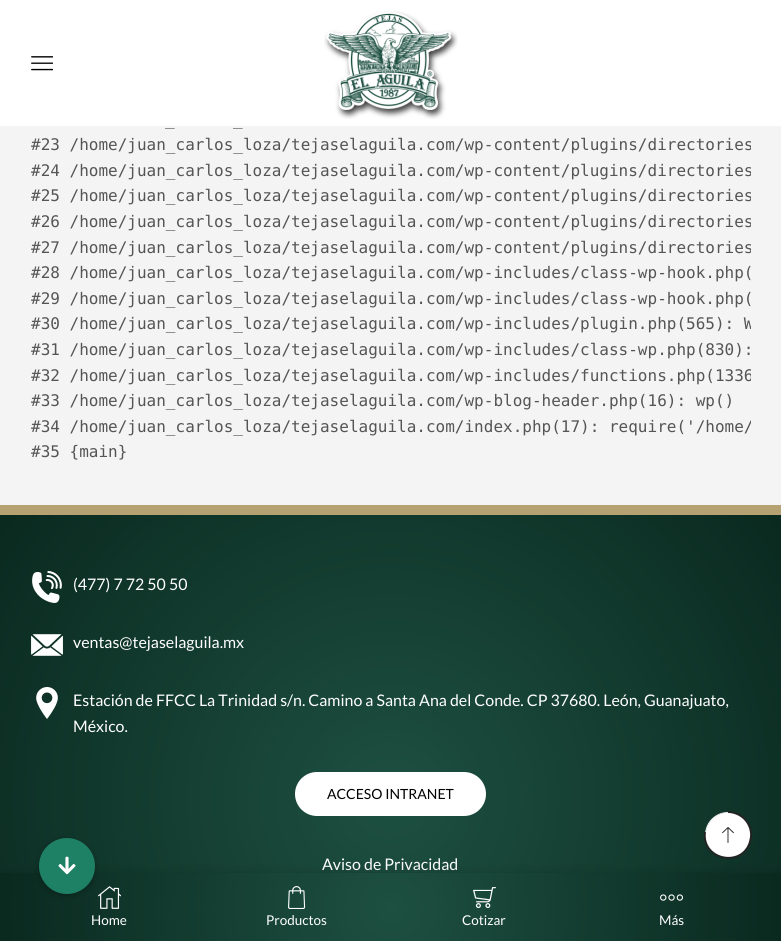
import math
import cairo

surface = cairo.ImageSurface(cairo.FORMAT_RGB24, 781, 941)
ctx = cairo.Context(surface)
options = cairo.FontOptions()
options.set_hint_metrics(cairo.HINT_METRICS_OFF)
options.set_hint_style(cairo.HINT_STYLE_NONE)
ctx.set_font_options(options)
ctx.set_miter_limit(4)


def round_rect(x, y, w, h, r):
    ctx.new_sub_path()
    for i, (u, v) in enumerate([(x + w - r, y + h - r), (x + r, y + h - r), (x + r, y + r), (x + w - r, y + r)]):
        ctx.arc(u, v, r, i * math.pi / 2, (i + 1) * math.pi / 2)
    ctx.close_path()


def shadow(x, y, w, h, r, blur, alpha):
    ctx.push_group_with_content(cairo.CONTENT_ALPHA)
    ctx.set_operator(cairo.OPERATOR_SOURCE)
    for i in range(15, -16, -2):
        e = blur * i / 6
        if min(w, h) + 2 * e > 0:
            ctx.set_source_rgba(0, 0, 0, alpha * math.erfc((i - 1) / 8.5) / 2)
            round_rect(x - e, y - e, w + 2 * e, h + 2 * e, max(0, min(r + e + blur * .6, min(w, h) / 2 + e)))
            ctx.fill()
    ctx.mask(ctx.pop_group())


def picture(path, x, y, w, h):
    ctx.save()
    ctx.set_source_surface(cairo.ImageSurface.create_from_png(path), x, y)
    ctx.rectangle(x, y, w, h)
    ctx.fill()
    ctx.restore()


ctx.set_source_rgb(0.957, 0.957, 0.957)
ctx.paint()
ctx.set_source_rgb(1, 1, 1)
ctx.rectangle(0, 0, 781, 126)
ctx.fill()
picture("img1.png", 31, 56, 22, 15)
picture("img2.png", 324, 11, 134, 108)
ctx.select_font_face("DejaVu Sans Mono")
ctx.set_font_size(16)
ctx.set_source_rgb(0.333, 0.333, 0.333)
ctx.move_to(165, 125)
ctx.show_text("_")
ctx.move_to(233, 125)
ctx.show_text("_")
ctx.save()
ctx.rectangle(31, 0, 720, 465)
ctx.clip()
ctx.move_to(31, 150)
ctx.show_text("#23 /home/juan_carlos_loza/tejaselaguila.com/wp-content/plugins/directories")
ctx.move_to(31, 176)
ctx.show_text("#24 /home/juan_carlos_loza/tejaselaguila.com/wp-content/plugins/directories")
ctx.move_to(31, 201)
ctx.show_text("#25 /home/juan_carlos_loza/tejaselaguila.com/wp-content/plugins/directories")
ctx.move_to(31, 227)
ctx.show_text("#26 /home/juan_carlos_loza/tejaselaguila.com/wp-content/plugins/directories")
ctx.move_to(31, 253)
ctx.show_text("#27 /home/juan_carlos_loza/tejaselaguila.com/wp-content/plugins/directories")
ctx.restore()
ctx.move_to(31, 278)
ctx.show_text("#28 /home/juan_carlos_loza/tejaselaguila.com/wp-includes/class-wp-hook.php(")
ctx.move_to(31, 304)
ctx.show_text("#29 /home/juan_carlos_loza/tejaselaguila.com/wp-includes/class-wp-hook.php(")
ctx.save()
ctx.rectangle(31, 0, 720, 465)
ctx.clip()
ctx.move_to(31, 329)
ctx.show_text("#30 /home/juan_carlos_loza/tejaselaguila.com/wp-includes/plugin.php(565): W")
ctx.restore()
ctx.move_to(31, 355)
ctx.show_text("#31 /home/juan_carlos_loza/tejaselaguila.com/wp-includes/class-wp.php(830):")
ctx.save()
ctx.rectangle(31, 0, 720, 465)
ctx.clip()
ctx.move_to(31, 381)
ctx.show_text("#32 /home/juan_carlos_loza/tejaselaguila.com/wp-includes/functions.php(1336")
ctx.restore()
ctx.move_to(31, 406)
ctx.show_text("#33 /home/juan_carlos_loza/tejaselaguila.com/wp-blog-header.php(16): wp()")
ctx.save()
ctx.rectangle(31, 0, 720, 465)
ctx.clip()
ctx.move_to(31, 432)
ctx.show_text("#34 /home/juan_carlos_loza/tejaselaguila.com/index.php(17): require('/home/")
ctx.restore()
ctx.move_to(31, 457)
ctx.show_text("#35 {main}")
gradient = cairo.RadialGradient(391, 799, 0, 391, 799, 483)
gradient.add_color_stop_rgba(0, 0.114, 0.314, 0.255, 1)
gradient.add_color_stop_rgba(1, 0.039, 0.161, 0.122, 1)
ctx.set_source(gradient)
ctx.rectangle(0, 515, 781, 358)
ctx.fill()
ctx.set_source_rgb(0.71, 0.631, 0.443)
ctx.rectangle(0, 505, 781, 10)
ctx.fill()
picture("img3.png", 32, 571, 30, 32)
ctx.select_font_face("Lato")
ctx.set_font_size(15.95)
ctx.set_source_rgb(1, 1, 1)
ctx.move_to(73, 590)
ctx.show_text("(477) 7 72 50 50")
picture("img4.png", 31, 634, 32, 22)
ctx.move_to(73, 648)
ctx.show_text("ventas@tejaselaguila.mx")
picture("img5.png", 36, 687, 22, 32)
ctx.move_to(73, 706)
ctx.show_text("Estación de FFCC La Trinidad s/n. Camino a Santa Ana del Conde. CP 37680. León, Guanajuato,")
ctx.move_to(73, 732)
ctx.show_text("México.")
round_rect(295, 772, 191, 44, 22)
ctx.fill()
ctx.set_font_size(14)
ctx.set_source_rgb(0, 0, 0)
ctx.move_to(327, 799)
ctx.show_text("ACCESO INTRANET")
ctx.set_font_size(15.95)
ctx.set_source_rgb(1, 1, 1)
ctx.move_to(322, 870)
ctx.show_text("Aviso de Privacidad")
ctx.set_source_rgb(0, 0, 0)
shadow(2, 873, 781, 68, 0, 6, 0.15)
ctx.set_source_rgb(1, 1, 1)
ctx.arc(728, 835, 22.5, 0, 2 * math.pi)
ctx.fill_preserve()
ctx.set_source_rgb(0.906, 0.906, 0.906)
ctx.set_line_width(1)
ctx.stroke()
ctx.save()
ctx.rectangle(704, 811, 48, 48)
ctx.clip()
ctx.new_path()
ctx.move_to(728, 812)
ctx.curve_to(735.5, 812, 743, 816, 747, 822)
ctx.curve_to(750.5, 827, 752, 833.5, 750.5, 839.5)
ctx.curve_to(745, 868.5, 701, 861, 705, 832)
ctx.set_source_rgb(0.133, 0.133, 0.133)
ctx.set_line_width(1.9)
ctx.stroke()
ctx.restore()
picture("img6.png", 722, 827, 12, 16)
gradient = cairo.RadialGradient(391, 907, 0, 391, 907, 392)
gradient.add_color_stop_rgba(0, 0.114, 0.314, 0.255, 1)
gradient.add_color_stop_rgba(1, 0.039, 0.161, 0.122, 1)
ctx.set_source(gradient)
ctx.rectangle(0, 873, 781, 68)
ctx.fill()
picture("img7.png", 98, 886, 23, 23)
ctx.set_font_size(13.5)
ctx.set_source_rgb(1, 1, 1)
ctx.move_to(91, 925)
ctx.show_text("Home")
picture("img8.png", 288, 886, 18, 23)
ctx.move_to(266, 925)
ctx.show_text("Productos")
picture("img9.png", 473, 887, 23, 22)
ctx.move_to(462, 925)
ctx.show_text("Cotizar")
picture("img10.png", 660, 894, 23, 7)
ctx.move_to(659, 925)
ctx.show_text("Más")
ctx.set_source_rgb(0, 0, 0)
shadow(38, 839, 58, 58, 29, 3, 0.2)
ctx.set_source_rgb(0.118, 0.502, 0.392)
ctx.arc(67, 866, 28, 0, 2 * math.pi)
ctx.fill()
picture("img11.png", 58, 856, 18, 19)
surface.write_to_png("page.png")
